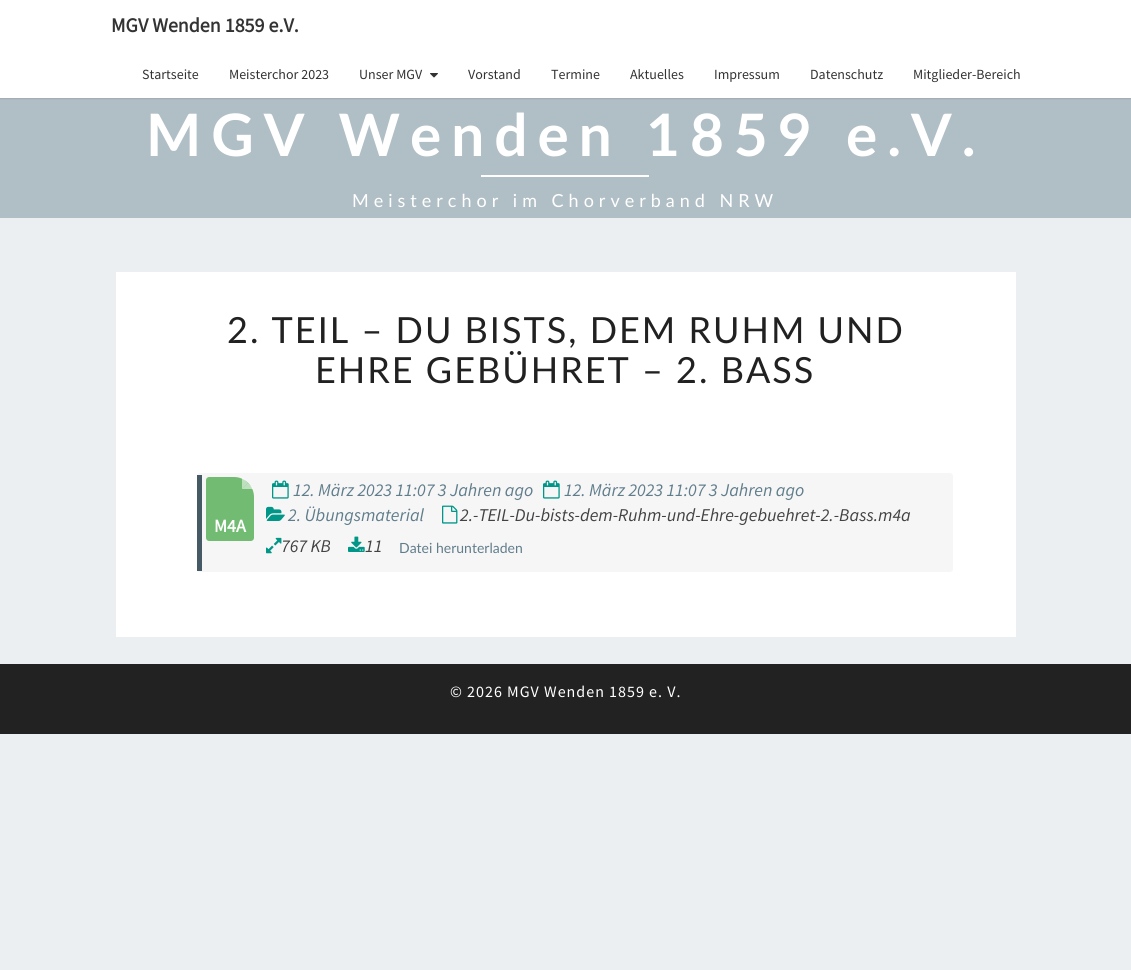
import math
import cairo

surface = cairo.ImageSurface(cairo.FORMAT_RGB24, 1131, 970)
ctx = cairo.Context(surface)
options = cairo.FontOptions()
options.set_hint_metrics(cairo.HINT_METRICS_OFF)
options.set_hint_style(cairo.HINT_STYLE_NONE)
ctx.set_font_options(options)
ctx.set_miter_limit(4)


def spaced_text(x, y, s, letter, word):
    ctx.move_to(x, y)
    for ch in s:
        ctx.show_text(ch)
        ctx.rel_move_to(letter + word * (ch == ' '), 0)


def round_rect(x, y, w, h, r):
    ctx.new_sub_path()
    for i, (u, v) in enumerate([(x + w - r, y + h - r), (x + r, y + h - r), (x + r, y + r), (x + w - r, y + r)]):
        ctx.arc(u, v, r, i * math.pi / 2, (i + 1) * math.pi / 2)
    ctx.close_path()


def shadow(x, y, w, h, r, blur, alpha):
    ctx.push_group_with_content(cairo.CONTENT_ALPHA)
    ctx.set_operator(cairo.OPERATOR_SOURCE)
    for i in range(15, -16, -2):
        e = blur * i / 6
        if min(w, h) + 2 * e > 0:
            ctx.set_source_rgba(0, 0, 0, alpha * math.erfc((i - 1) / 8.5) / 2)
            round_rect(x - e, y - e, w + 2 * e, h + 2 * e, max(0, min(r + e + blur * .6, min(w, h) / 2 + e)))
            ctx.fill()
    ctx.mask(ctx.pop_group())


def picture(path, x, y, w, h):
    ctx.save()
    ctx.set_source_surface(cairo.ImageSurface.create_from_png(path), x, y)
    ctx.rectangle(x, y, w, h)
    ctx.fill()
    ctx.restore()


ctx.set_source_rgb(0.925, 0.937, 0.945)
ctx.paint()
ctx.set_source_rgb(0.69, 0.745, 0.773)
ctx.rectangle(0, 98, 1131, 120)
ctx.fill()
ctx.set_source_rgb(0.392, 0.392, 0.392)
shadow(0, 1, 1131, 98, 0, 0.5, 0.2)
ctx.set_source_rgb(1, 1, 1)
ctx.rectangle(0, 0, 1131, 98)
ctx.fill()
ctx.select_font_face("Source Sans Pro", cairo.FONT_SLANT_NORMAL, cairo.FONT_WEIGHT_BOLD)
ctx.set_font_size(20)
ctx.set_source_rgb(0.2, 0.2, 0.2)
ctx.move_to(111, 32)
ctx.show_text("MGV Wenden 1859 e.V.")
ctx.select_font_face("Source Sans Pro")
ctx.set_font_size(14)
ctx.move_to(142, 79)
ctx.show_text("Startseite")
ctx.move_to(229, 79)
ctx.show_text("Meisterchor 2023")
ctx.move_to(359, 79)
ctx.show_text("Unser MGV")
picture("img1.png", 430, 73, 8, 5)
ctx.move_to(468, 79)
ctx.show_text("Vorstand")
ctx.move_to(551, 79)
ctx.show_text("Termine")
ctx.move_to(630, 79)
ctx.show_text("Aktuelles")
ctx.move_to(714, 79)
ctx.show_text("Impressum")
ctx.move_to(810, 79)
ctx.show_text("Datenschutz")
ctx.move_to(913, 79)
ctx.show_text("Mitglieder-Bereich")
ctx.select_font_face("Lato", cairo.FONT_SLANT_NORMAL, cairo.FONT_WEIGHT_BOLD)
ctx.set_font_size(58.5)
ctx.set_source_rgb(1, 1, 1)
spaced_text(146, 156, "MGV Wenden 1859 e.V.", 10, 0)
ctx.rectangle(481, 175, 168, 2)
ctx.fill()
ctx.select_font_face("Lato")
ctx.set_font_size(18)
spaced_text(352, 207, "Meisterchor im Chorverband NRW", 5, 0)
ctx.rectangle(116, 272, 900, 365)
ctx.fill()
ctx.set_font_size(36)
ctx.set_source_rgb(0.129, 0.129, 0.129)
spaced_text(227, 343, "2. TEIL – DU BISTS, DEM RUHM UND", 2, 0)
spaced_text(315, 383, "EHRE GEBÜHRET – 2. BASS", 2, 0)
ctx.set_source_rgb(0.961, 0.961, 0.961)
round_rect(197, 473, 756, 99, 3)
ctx.fill()
ctx.set_source_rgb(0.271, 0.353, 0.392)
ctx.rectangle(197, 475, 5, 96)
ctx.fill()
ctx.set_source_rgb(0.447, 0.733, 0.447)
ctx.new_path()
ctx.move_to(209, 477)
ctx.line_to(234, 477)
ctx.curve_to(245, 477, 254, 486, 254, 497)
ctx.line_to(254, 538)
ctx.curve_to(254, 539.5, 252.5, 541, 251, 541)
ctx.line_to(209, 541)
ctx.curve_to(207.5, 541, 206, 539.5, 206, 538)
ctx.line_to(206, 480)
ctx.curve_to(206, 478.5, 207.5, 477, 209, 477)
ctx.close_path()
ctx.fill()
ctx.set_source_rgba(1, 1, 1, 0.55)
ctx.new_path()
ctx.move_to(254, 489)
ctx.line_to(242, 489)
ctx.line_to(248, 483)
ctx.close_path()
ctx.fill()
ctx.new_path()
ctx.move_to(242, 489)
ctx.line_to(242, 477)
ctx.line_to(248, 483)
ctx.close_path()
ctx.fill()
ctx.select_font_face("Source Sans Pro", cairo.FONT_SLANT_NORMAL, cairo.FONT_WEIGHT_BOLD)
ctx.set_font_size(18)
ctx.set_source_rgb(1, 1, 1)
ctx.move_to(214, 532)
ctx.show_text("M4A")
picture("img2.png", 272, 480, 17, 19)
ctx.select_font_face("Source Sans Pro", cairo.FONT_SLANT_ITALIC)
ctx.set_source_rgb(0.376, 0.49, 0.545)
ctx.move_to(293, 496)
ctx.show_text("12. März 2023 11:07 3 Jahren ago")
picture("img2.png", 543, 480, 17, 19)
ctx.move_to(564, 496)
ctx.show_text("12. März 2023 11:07 3 Jahren ago")
picture("img3.png", 266, 506, 19, 15)
ctx.move_to(288, 521)
ctx.show_text("2. Übungsmaterial")
picture("img4.png", 442, 505, 16, 19)
ctx.set_source_rgb(0.259, 0.259, 0.259)
ctx.move_to(460, 521)
ctx.show_text("2.-TEIL-Du-bists-dem-Ruhm-und-Ehre-gebuehret-2.-Bass.m4a")
picture("img5.png", 266, 537, 16, 17)
ctx.move_to(281, 552)
ctx.show_text("767 KB")
picture("img6.png", 348, 536, 17, 16)
ctx.move_to(365, 552)
ctx.show_text("11")
ctx.select_font_face("Lato")
ctx.set_font_size(14)
ctx.set_source_rgb(0.376, 0.49, 0.545)
ctx.move_to(399, 553)
ctx.show_text("Datei herunterladen")
ctx.set_source_rgb(0.133, 0.133, 0.133)
ctx.rectangle(0, 664, 1131, 70)
ctx.fill()
ctx.select_font_face("Source Sans Pro")
ctx.set_font_size(16)
ctx.set_source_rgb(1, 1, 1)
spaced_text(450, 697, "© 2026 MGV Wenden 1859 e. V.", 1, 0)
surface.write_to_png("page.png")
